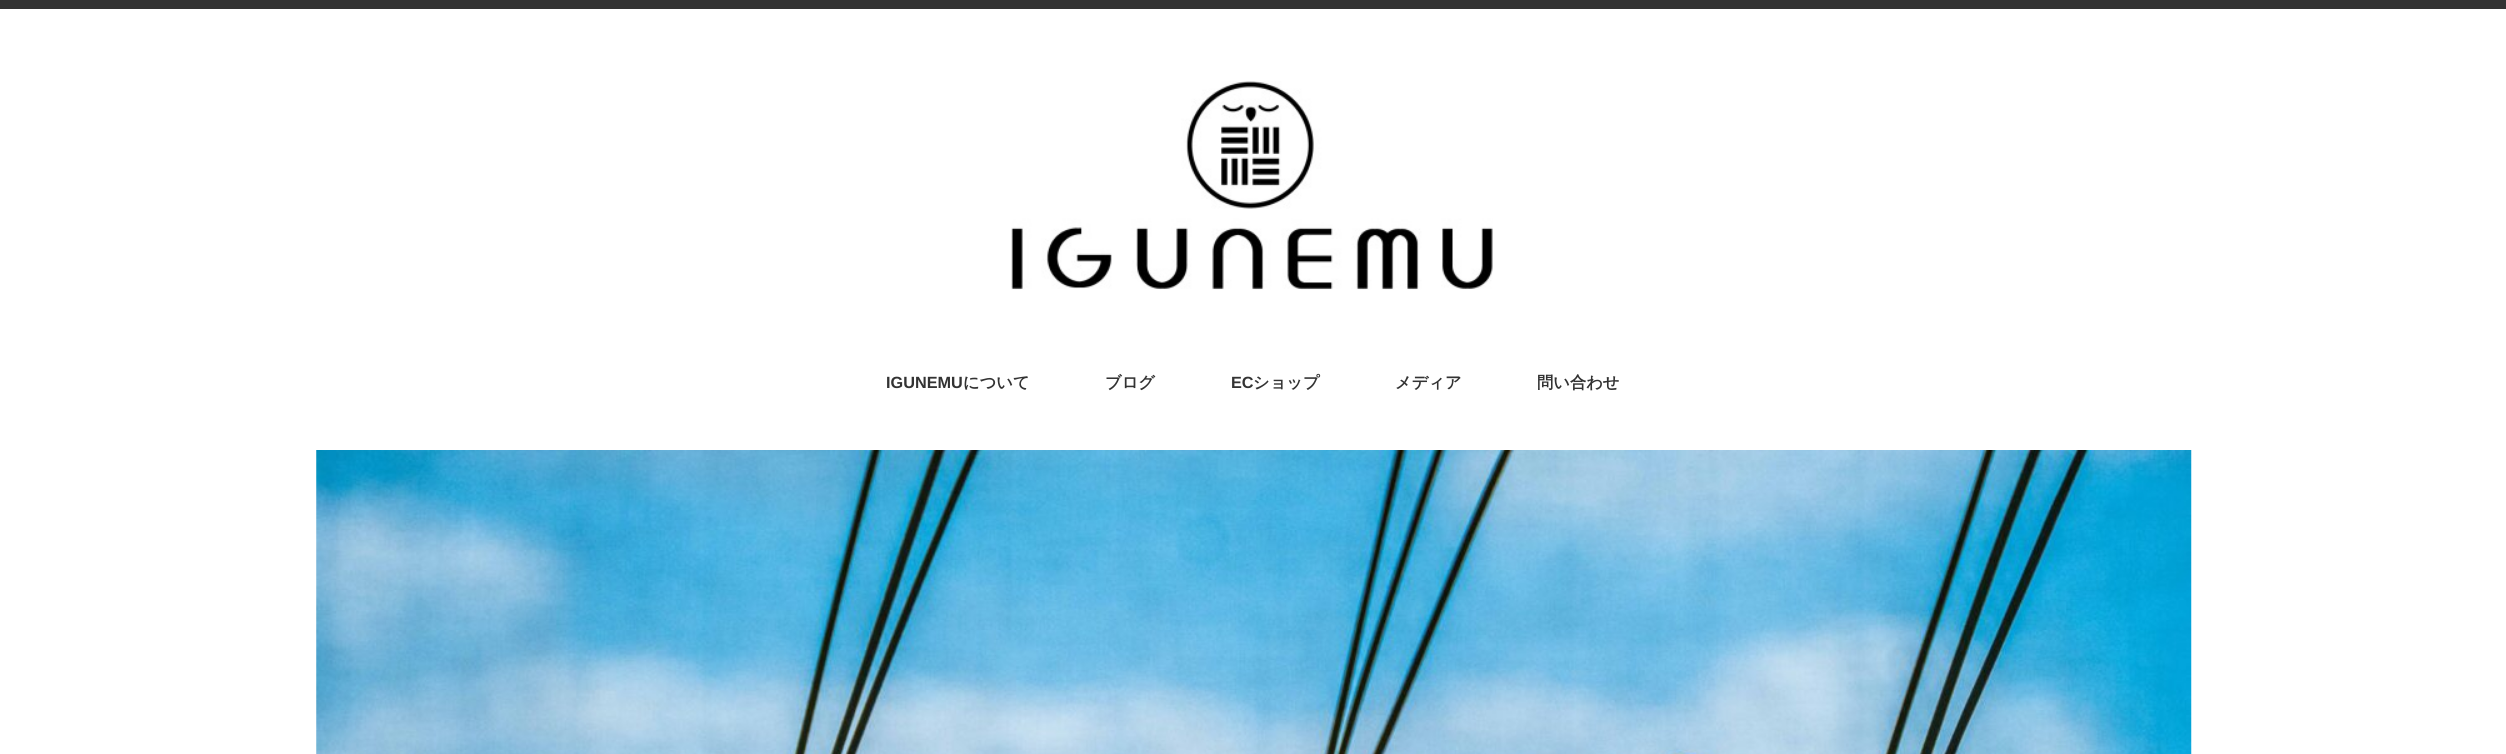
import math
import cairo

surface = cairo.ImageSurface(cairo.FORMAT_RGB24, 2506, 754)
ctx = cairo.Context(surface)
options = cairo.FontOptions()
options.set_hint_metrics(cairo.HINT_METRICS_OFF)
options.set_hint_style(cairo.HINT_STYLE_NONE)
ctx.set_font_options(options)
ctx.set_miter_limit(4)


def picture(path, x, y, w, h):
    ctx.save()
    ctx.set_source_surface(cairo.ImageSurface.create_from_png(path), x, y)
    ctx.rectangle(x, y, w, h)
    ctx.fill()
    ctx.restore()


ctx.set_source_rgb(1, 1, 1)
ctx.paint()
ctx.set_source_rgb(0.2, 0.2, 0.2)
ctx.rectangle(0, 0, 2506, 9)
ctx.fill()
picture("img1.png", 1011, 81, 482, 209)
ctx.select_font_face("Liberation Sans", cairo.FONT_SLANT_NORMAL, cairo.FONT_WEIGHT_BOLD)
ctx.set_font_size(16.25)
ctx.move_to(886, 388)
ctx.show_text("IGUNEMU")
ctx.select_font_face("WenQuanYi Zen Hei", cairo.FONT_SLANT_NORMAL, cairo.FONT_WEIGHT_BOLD)
ctx.move_to(963, 388)
ctx.show_text("について")
ctx.move_to(1105, 388)
ctx.show_text("ブログ")
ctx.select_font_face("Liberation Sans", cairo.FONT_SLANT_NORMAL, cairo.FONT_WEIGHT_BOLD)
ctx.move_to(1231, 388)
ctx.show_text("EC")
ctx.select_font_face("WenQuanYi Zen Hei", cairo.FONT_SLANT_NORMAL, cairo.FONT_WEIGHT_BOLD)
ctx.move_to(1253, 388)
ctx.show_text("ショップ")
ctx.move_to(1395, 388)
ctx.show_text("メディア")
ctx.move_to(1537, 388)
ctx.show_text("問い合わせ")
picture("img2.png", 316, 450, 1876, 304)
surface.write_to_png("page.png")
